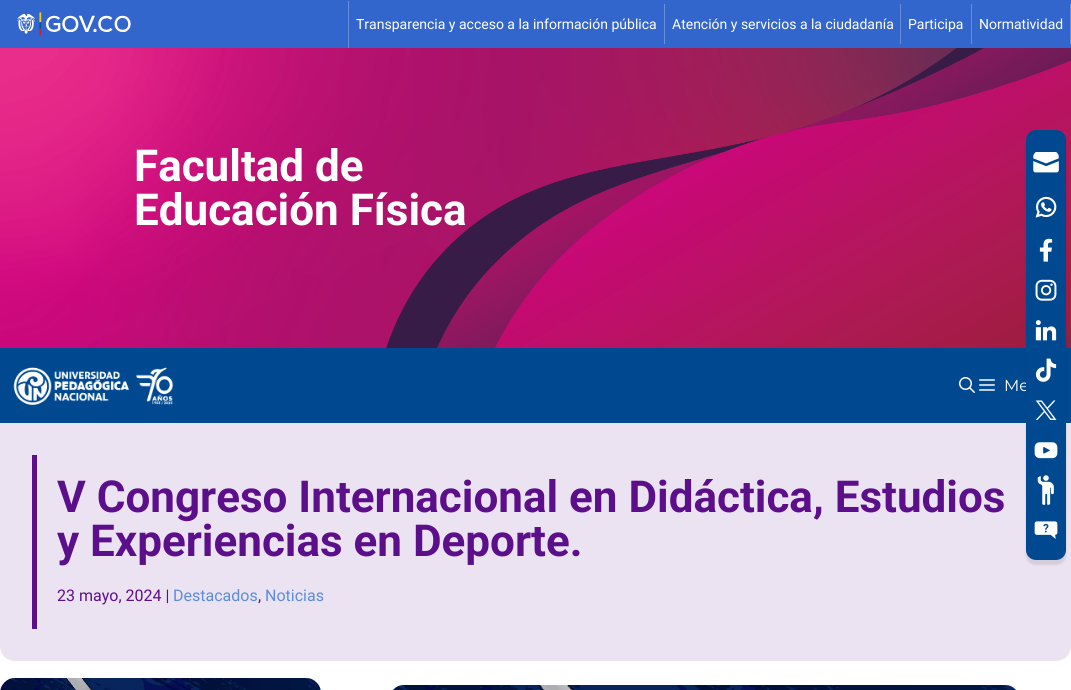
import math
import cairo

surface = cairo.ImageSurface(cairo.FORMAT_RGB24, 1071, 690)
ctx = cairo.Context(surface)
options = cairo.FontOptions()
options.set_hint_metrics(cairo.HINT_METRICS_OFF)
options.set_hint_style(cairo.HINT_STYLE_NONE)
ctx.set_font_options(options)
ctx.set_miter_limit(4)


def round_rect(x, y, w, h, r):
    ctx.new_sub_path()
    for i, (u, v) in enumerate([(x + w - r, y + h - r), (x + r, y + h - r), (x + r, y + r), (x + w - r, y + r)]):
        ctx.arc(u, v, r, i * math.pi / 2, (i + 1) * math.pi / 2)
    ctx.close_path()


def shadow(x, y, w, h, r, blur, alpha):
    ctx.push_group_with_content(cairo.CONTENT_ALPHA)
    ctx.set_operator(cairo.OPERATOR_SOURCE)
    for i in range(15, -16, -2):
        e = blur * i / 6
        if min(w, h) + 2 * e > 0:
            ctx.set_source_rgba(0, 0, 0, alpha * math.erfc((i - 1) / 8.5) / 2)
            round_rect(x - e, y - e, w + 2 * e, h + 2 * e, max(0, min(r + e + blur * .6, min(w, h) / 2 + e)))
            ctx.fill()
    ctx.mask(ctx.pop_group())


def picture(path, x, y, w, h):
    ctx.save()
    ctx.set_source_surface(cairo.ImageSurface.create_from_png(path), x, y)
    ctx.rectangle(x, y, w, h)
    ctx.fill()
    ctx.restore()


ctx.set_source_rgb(1, 1, 1)
ctx.paint()
ctx.set_source_rgb(0.2, 0.4, 0.8)
ctx.rectangle(0, 0, 1071, 48)
ctx.fill()
ctx.set_source_rgb(0.416, 0.561, 0.855)
ctx.rectangle(348, 1, 1, 47)
ctx.fill()
picture("img1.png", 17, 12, 114, 24)
ctx.rectangle(664, 4, 1, 40)
ctx.fill()
ctx.select_font_face("Roboto")
ctx.set_font_size(14)
ctx.set_source_rgb(1, 1, 1)
ctx.move_to(356, 29)
ctx.show_text("Transparencia y acceso a la información pública")
ctx.set_source_rgb(0.416, 0.561, 0.855)
ctx.rectangle(900, 4, 1, 40)
ctx.fill()
ctx.set_source_rgb(1, 1, 1)
ctx.move_to(672, 29)
ctx.show_text("Atención y servicios a la ciudadanía")
ctx.set_source_rgb(0.416, 0.561, 0.855)
ctx.rectangle(971, 4, 1, 40)
ctx.fill()
ctx.set_source_rgb(1, 1, 1)
ctx.move_to(908, 29)
ctx.show_text("Participa")
ctx.set_source_rgb(0.416, 0.561, 0.855)
ctx.rectangle(1070, 4, 1, 40)
ctx.fill()
ctx.set_source_rgb(1, 1, 1)
ctx.move_to(979, 29)
ctx.show_text("Normatividad")
picture("img2.png", 0, 48, 1071, 300)
ctx.select_font_face("Roboto", cairo.FONT_SLANT_NORMAL, cairo.FONT_WEIGHT_BOLD)
ctx.set_font_size(44)
ctx.move_to(134, 181)
ctx.show_text("Facultad de")
ctx.move_to(134, 225)
ctx.show_text("Educación Física")
ctx.set_source_rgb(0, 0.286, 0.569)
ctx.rectangle(0, 348, 1071, 75)
ctx.fill()
ctx.set_source_rgb(0.925, 0.89, 0.949)
ctx.new_path()
ctx.move_to(0, 423)
ctx.line_to(1071, 423)
ctx.line_to(1071, 646)
ctx.curve_to(1071, 654.5, 1064.5, 661, 1056, 661)
ctx.line_to(15, 661)
ctx.curve_to(6.5, 661, 0, 654.5, 0, 646)
ctx.close_path()
ctx.fill()
ctx.set_source_rgb(0, 0, 0)
shadow(1026, 135, 40, 430, 10, 1, 0.1)
ctx.select_font_face("Montserrat")
ctx.set_font_size(16)
ctx.set_source_rgb(1, 1, 1)
ctx.move_to(1004, 391)
ctx.show_text("Me")
ctx.set_source_rgb(0, 0.286, 0.569)
round_rect(1026, 130, 40, 430, 10)
ctx.fill()
picture("img3.png", 1033, 152, 26, 21)
picture("img4.png", 1035, 196, 22, 22)
picture("img5.png", 1039, 238, 14, 24)
picture("img6.png", 1035, 279, 22, 22)
picture("img7.png", 1035, 320, 22, 21)
picture("img8.png", 1035, 358, 22, 24)
picture("img9.png", 1035, 400, 22, 20)
picture("img10.png", 1034, 442, 24, 17)
picture("img11.png", 1037, 475, 17, 30)
picture("img12.png", 1034, 521, 24, 18)
picture("img13.png", 13, 367, 161, 39)
picture("img14.png", 959, 377, 16, 16)
picture("img15.png", 979, 379, 16, 12)
ctx.set_source_rgb(0.361, 0.059, 0.545)
ctx.rectangle(32, 455, 5, 174)
ctx.fill()
ctx.select_font_face("Roboto", cairo.FONT_SLANT_NORMAL, cairo.FONT_WEIGHT_BOLD)
ctx.set_font_size(44)
ctx.move_to(57, 512)
ctx.show_text("V Congreso Internacional en Didáctica, Estudios")
ctx.move_to(57, 556)
ctx.show_text("y Experiencias en Deporte.")
ctx.select_font_face("Roboto")
ctx.set_font_size(16)
ctx.move_to(57, 601)
ctx.show_text("23 mayo, 2024 |")
ctx.set_source_rgb(0.361, 0.549, 0.859)
ctx.move_to(173, 601)
ctx.show_text("Destacados")
ctx.set_source_rgb(0.361, 0.059, 0.545)
ctx.move_to(258, 601)
ctx.show_text(",")
ctx.set_source_rgb(0.361, 0.549, 0.859)
ctx.move_to(265, 601)
ctx.show_text("Noticias")
picture("img16.png", 0, 678, 321, 12)
picture("img17.png", 393, 685, 623, 5)
surface.write_to_png("page.png")
